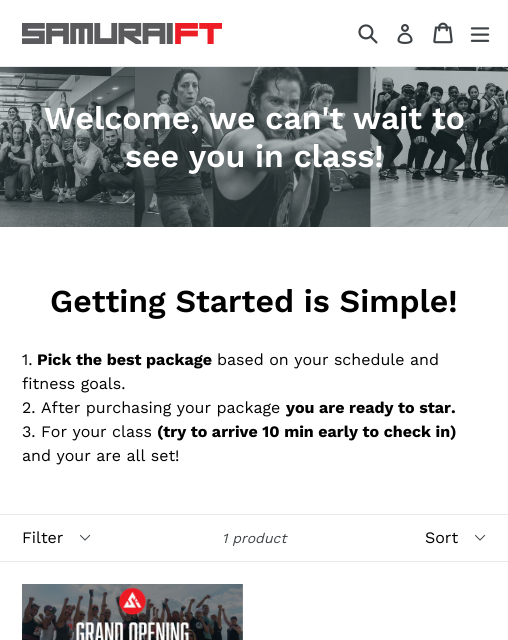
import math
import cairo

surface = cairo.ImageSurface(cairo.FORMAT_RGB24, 508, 640)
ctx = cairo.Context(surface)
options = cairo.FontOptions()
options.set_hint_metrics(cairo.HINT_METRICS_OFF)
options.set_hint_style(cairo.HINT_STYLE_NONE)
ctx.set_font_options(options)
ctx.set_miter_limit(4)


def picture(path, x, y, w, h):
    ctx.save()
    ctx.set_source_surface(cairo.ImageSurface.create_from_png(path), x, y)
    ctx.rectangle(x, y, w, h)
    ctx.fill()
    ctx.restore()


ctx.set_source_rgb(1, 1, 1)
ctx.paint()
ctx.set_source_rgb(0.91, 0.914, 0.922)
ctx.rectangle(0, 66, 508, 1)
ctx.fill()
picture("img1.png", 22, 23, 200, 21)
picture("img2.png", 358, 24, 20, 20)
picture("img3.png", 397, 24, 16, 20)
picture("img4.png", 433, 22, 20, 22)
picture("img5.png", 470, 27, 20, 15)
picture("img6.png", 0, 67, 508, 160)
ctx.select_font_face("Work Sans SemiBold")
ctx.set_font_size(32)
ctx.set_source_rgb(1, 1, 1)
ctx.move_to(44, 129)
ctx.show_text("Welcome, we can't wait to")
ctx.move_to(125, 167)
ctx.show_text("see you in class!")
ctx.set_source_rgb(0, 0, 0)
ctx.move_to(50, 312)
ctx.show_text("Getting Started is Simple!")
ctx.select_font_face("Work Sans")
ctx.set_font_size(16)
ctx.move_to(22, 365)
ctx.show_text("1.")
ctx.select_font_face("Work Sans", cairo.FONT_SLANT_NORMAL, cairo.FONT_WEIGHT_BOLD)
ctx.move_to(37, 365)
ctx.show_text("Pick the best package")
ctx.select_font_face("Work Sans")
ctx.move_to(217, 365)
ctx.show_text("based on your schedule and")
ctx.move_to(22, 389)
ctx.show_text("fitness goals.")
ctx.move_to(22, 413)
ctx.show_text("2. After purchasing your package")
ctx.select_font_face("Work Sans", cairo.FONT_SLANT_NORMAL, cairo.FONT_WEIGHT_BOLD)
ctx.move_to(286, 413)
ctx.show_text("you are ready to star.")
ctx.select_font_face("Work Sans")
ctx.move_to(22, 437)
ctx.show_text("3. For your class")
ctx.select_font_face("Work Sans", cairo.FONT_SLANT_NORMAL, cairo.FONT_WEIGHT_BOLD)
ctx.move_to(157, 437)
ctx.show_text("(try to arrive 10 min early to check in)")
ctx.select_font_face("Work Sans")
ctx.move_to(22, 461)
ctx.show_text("and your are all set!")
ctx.set_source_rgb(0.91, 0.914, 0.922)
ctx.rectangle(0, 514, 508, 1)
ctx.fill()
ctx.rectangle(0, 561, 508, 1)
ctx.fill()
picture("img7.png", 79, 534, 12, 7)
ctx.set_source_rgb(0, 0, 0)
ctx.move_to(22, 543)
ctx.show_text("Filter")
ctx.select_font_face("Work Sans", cairo.FONT_SLANT_ITALIC)
ctx.set_font_size(14)
ctx.set_source_rgb(0.239, 0.259, 0.275)
ctx.move_to(222, 543)
ctx.show_text("1 product")
picture("img7.png", 474, 534, 12, 7)
ctx.select_font_face("Work Sans")
ctx.set_font_size(16)
ctx.set_source_rgb(0, 0, 0)
ctx.move_to(425, 543)
ctx.show_text("Sort")
picture("img8.png", 22, 584, 221, 56)
surface.write_to_png("page.png")
